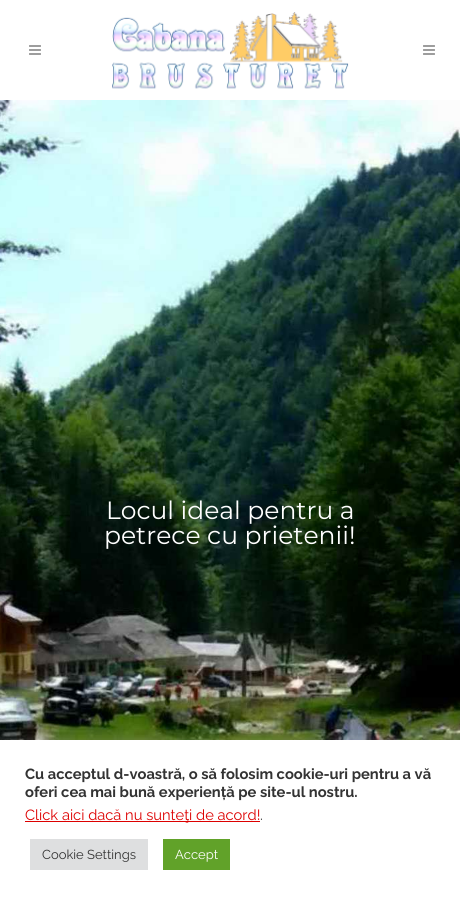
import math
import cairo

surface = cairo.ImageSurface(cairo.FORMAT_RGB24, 460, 900)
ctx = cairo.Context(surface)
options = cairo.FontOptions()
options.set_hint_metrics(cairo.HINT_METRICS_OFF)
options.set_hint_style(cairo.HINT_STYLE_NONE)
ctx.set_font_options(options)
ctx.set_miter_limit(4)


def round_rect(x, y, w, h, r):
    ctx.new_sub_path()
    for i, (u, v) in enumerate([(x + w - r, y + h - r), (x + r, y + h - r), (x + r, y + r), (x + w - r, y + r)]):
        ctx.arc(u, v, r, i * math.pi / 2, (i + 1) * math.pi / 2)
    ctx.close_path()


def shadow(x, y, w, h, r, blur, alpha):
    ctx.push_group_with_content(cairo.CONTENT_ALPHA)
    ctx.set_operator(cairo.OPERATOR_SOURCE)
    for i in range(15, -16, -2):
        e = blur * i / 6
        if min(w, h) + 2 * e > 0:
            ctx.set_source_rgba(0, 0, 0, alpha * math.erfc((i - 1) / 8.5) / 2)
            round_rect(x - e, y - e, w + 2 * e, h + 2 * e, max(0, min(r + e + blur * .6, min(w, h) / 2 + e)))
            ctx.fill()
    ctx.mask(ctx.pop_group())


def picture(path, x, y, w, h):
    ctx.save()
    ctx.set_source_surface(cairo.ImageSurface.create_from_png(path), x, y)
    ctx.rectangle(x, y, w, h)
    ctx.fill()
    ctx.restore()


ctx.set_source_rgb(1, 1, 1)
ctx.paint()
picture("img1.png", 29, 45, 12, 10)
picture("img2.png", 112, 12, 237, 77)
picture("img1.png", 423, 45, 12, 10)
picture("img3.png", 0, 100, 460, 640)
ctx.select_font_face("Montserrat")
ctx.set_font_size(25)
ctx.set_source_rgb(1, 1, 1)
ctx.move_to(106, 519)
ctx.show_text("Locul ideal pentru a")
ctx.move_to(104, 544)
ctx.show_text("petrece cu prietenii!")
ctx.set_source_rgb(0.675, 0.671, 0.671)
shadow(0, 739, 460, 160, 0, 5, 0.3)
ctx.set_source_rgb(1, 1, 1)
ctx.rectangle(0, 740, 460, 160)
ctx.fill()
ctx.select_font_face("Raleway", cairo.FONT_SLANT_NORMAL, cairo.FONT_WEIGHT_BOLD)
ctx.set_font_size(14.7)
ctx.set_source_rgb(0.2, 0.2, 0.2)
ctx.move_to(25, 779)
ctx.show_text("Cu acceptul d-voastră, o să folosim cookie-uri pentru a vă")
ctx.move_to(25, 797)
ctx.show_text("oferi cea mai bună experiență pe site-ul nostru.")
ctx.set_source_rgb(0.867, 0, 0)
ctx.rectangle(25, 821, 235, 1)
ctx.fill()
ctx.select_font_face("Raleway")
ctx.move_to(25, 820)
ctx.show_text("Click aici dacă nu sunteţi de acord!")
ctx.set_source_rgb(0.2, 0.2, 0.2)
ctx.move_to(260, 820)
ctx.show_text(".")
ctx.set_source_rgb(0.871, 0.875, 0.878)
ctx.rectangle(30, 839, 118, 31)
ctx.fill()
ctx.set_font_size(13)
ctx.set_source_rgb(0.2, 0.2, 0.2)
ctx.move_to(42, 859)
ctx.show_text("Cookie Settings")
ctx.set_source_rgb(0.38, 0.635, 0.161)
ctx.rectangle(163, 839, 67, 31)
ctx.fill()
ctx.set_source_rgb(1, 1, 1)
ctx.move_to(175, 859)
ctx.show_text("Accept")
surface.write_to_png("page.png")
